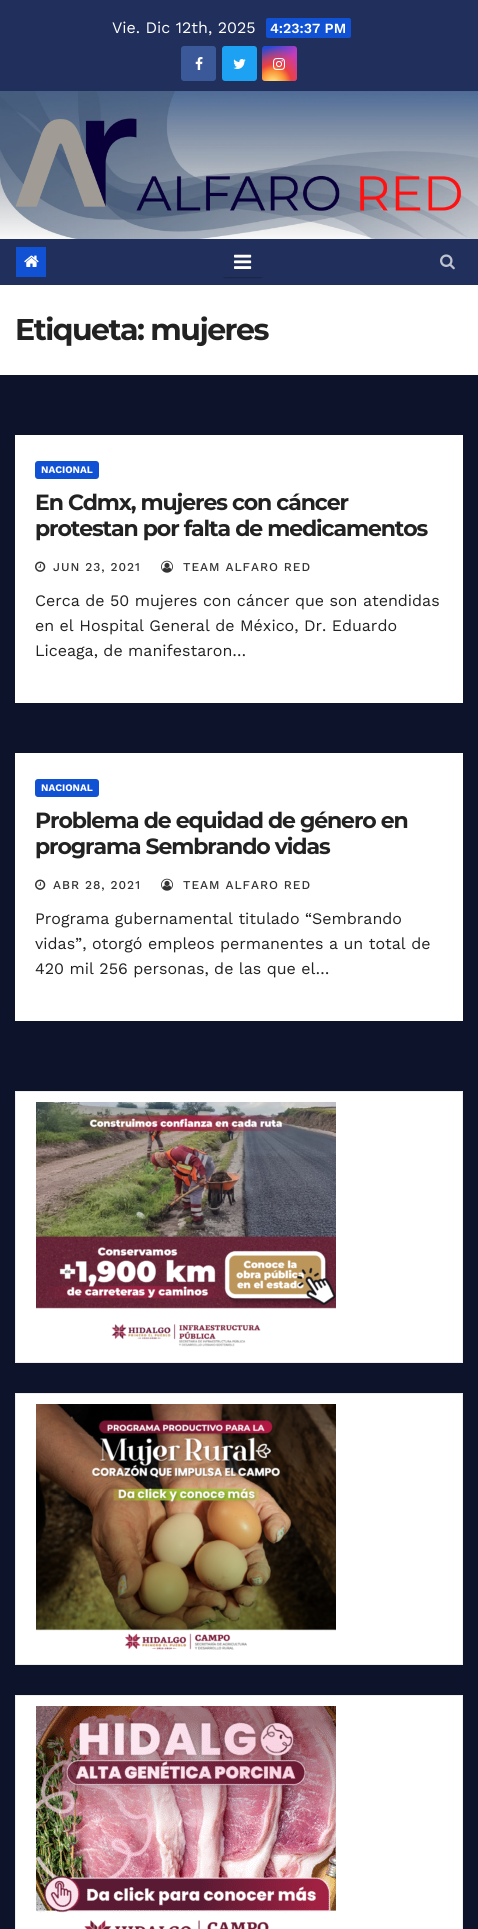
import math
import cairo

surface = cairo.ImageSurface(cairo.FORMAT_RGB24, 478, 1929)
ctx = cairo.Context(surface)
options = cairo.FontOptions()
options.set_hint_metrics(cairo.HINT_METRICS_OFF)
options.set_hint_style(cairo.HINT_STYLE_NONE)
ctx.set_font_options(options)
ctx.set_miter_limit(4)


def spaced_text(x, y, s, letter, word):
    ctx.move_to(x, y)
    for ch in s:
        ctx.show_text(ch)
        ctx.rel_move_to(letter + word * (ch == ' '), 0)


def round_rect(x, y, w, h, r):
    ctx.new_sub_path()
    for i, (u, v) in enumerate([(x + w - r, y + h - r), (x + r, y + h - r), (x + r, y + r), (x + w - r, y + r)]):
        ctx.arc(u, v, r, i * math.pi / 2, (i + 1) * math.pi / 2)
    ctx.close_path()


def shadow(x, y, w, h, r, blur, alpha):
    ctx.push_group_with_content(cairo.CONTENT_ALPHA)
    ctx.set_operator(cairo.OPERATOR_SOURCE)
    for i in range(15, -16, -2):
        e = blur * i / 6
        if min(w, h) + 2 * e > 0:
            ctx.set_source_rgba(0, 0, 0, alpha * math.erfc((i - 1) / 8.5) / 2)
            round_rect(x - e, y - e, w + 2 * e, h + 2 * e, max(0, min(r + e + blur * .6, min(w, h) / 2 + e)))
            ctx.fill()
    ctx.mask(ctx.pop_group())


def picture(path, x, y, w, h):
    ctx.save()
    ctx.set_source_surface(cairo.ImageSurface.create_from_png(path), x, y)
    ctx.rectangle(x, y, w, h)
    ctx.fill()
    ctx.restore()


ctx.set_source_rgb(0.051, 0.078, 0.169)
ctx.paint()
ctx.set_source_rgb(0.125, 0.184, 0.357)
ctx.rectangle(0, 0, 478, 91)
ctx.fill()
ctx.select_font_face("Work Sans")
ctx.set_font_size(16)
ctx.set_source_rgb(1, 1, 1)
ctx.move_to(112, 33)
ctx.show_text("Vie. Dic 12th, 2025")
ctx.set_source_rgb(0.067, 0.318, 0.827)
round_rect(266, 18, 85, 20, 2)
ctx.fill()
ctx.select_font_face("Work Sans SemiBold")
ctx.set_font_size(14)
ctx.set_source_rgb(1, 1, 1)
ctx.move_to(270, 33)
ctx.show_text("4:23:37 PM")
ctx.set_source_rgb(0.231, 0.349, 0.596)
round_rect(181, 46, 35, 35, 3)
ctx.fill()
picture("img1.png", 195, 57, 8, 13)
ctx.set_source_rgb(0.114, 0.631, 0.949)
round_rect(222, 46, 35, 35, 3)
ctx.fill()
picture("img2.png", 233, 59, 13, 10)
gradient = cairo.LinearGradient(262, 46, 297, 81)
gradient.add_color_stop_rgba(0.12, 0.137, 0.294, 0.843, 1)
gradient.add_color_stop_rgba(0.58, 0.765, 0.235, 0.745, 1)
ctx.set_source(gradient)
round_rect(262, 46, 35, 35, 3)
ctx.fill()
gradient = cairo.RadialGradient(273, 83, 0, 273, 83, 44)
gradient.add_color_stop_rgba(0, 1, 0.882, 0.49, 1)
gradient.add_color_stop_rgba(0.1, 1, 0.804, 0.412, 1)
gradient.add_color_stop_rgba(0.28, 0.98, 0.569, 0.216, 1)
gradient.add_color_stop_rgba(0.42, 0.922, 0.255, 0.255, 1)
gradient.add_color_stop_rgba(0.82, 0.922, 0.255, 0.255, 0)
ctx.set_source(gradient)
round_rect(262, 46, 35, 35, 3)
ctx.fill()
picture("img3.png", 273, 58, 12, 12)
picture("img4.png", 0, 91, 478, 148)
picture("img5.png", 15, 118, 447, 93)
ctx.set_source_rgb(0.125, 0.184, 0.357)
ctx.rectangle(0, 239, 478, 46)
ctx.fill()
ctx.set_source_rgb(0.067, 0.318, 0.827)
ctx.rectangle(16, 247, 30, 30)
ctx.fill()
picture("img6.png", 24, 255, 15, 12)
ctx.save()
ctx.set_fill_rule(cairo.FILL_RULE_EVEN_ODD)
ctx.new_path()
ctx.move_to(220, 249)
ctx.line_to(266, 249)
ctx.line_to(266, 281)
ctx.line_to(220, 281)
ctx.close_path()
ctx.move_to(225, 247)
ctx.line_to(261, 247)
ctx.curve_to(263, 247, 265, 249, 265, 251)
ctx.line_to(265, 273)
ctx.curve_to(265, 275, 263, 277, 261, 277)
ctx.line_to(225, 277)
ctx.curve_to(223, 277, 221, 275, 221, 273)
ctx.line_to(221, 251)
ctx.curve_to(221, 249, 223, 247, 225, 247)
ctx.close_path()
ctx.clip()
ctx.set_source_rgb(0, 0, 0)
shadow(223, 252, 40, 26, 2, 0.5, 0.2)
ctx.restore()
picture("img7.png", 234, 254, 18, 15)
picture("img8.png", 440, 254, 15, 16)
ctx.set_source_rgb(1, 1, 1)
ctx.rectangle(0, 285, 478, 90)
ctx.fill()
ctx.select_font_face("Montserrat", cairo.FONT_SLANT_NORMAL, cairo.FONT_WEIGHT_BOLD)
ctx.set_font_size(30)
ctx.set_source_rgb(0.133, 0.133, 0.133)
spaced_text(15, 340, "Etiqueta: mujeres", -1.5, 0)
ctx.set_source_rgb(1, 1, 1)
ctx.rectangle(15, 435, 448, 268)
ctx.fill()
ctx.set_source_rgb(0.067, 0.318, 0.827)
round_rect(35, 461, 64, 18, 3)
ctx.fill()
ctx.select_font_face("Work Sans", cairo.FONT_SLANT_NORMAL, cairo.FONT_WEIGHT_BOLD)
ctx.set_font_size(10)
ctx.set_source_rgb(1, 1, 1)
ctx.move_to(41, 473)
ctx.show_text("NACIONAL")
ctx.select_font_face("Montserrat", cairo.FONT_SLANT_NORMAL, cairo.FONT_WEIGHT_BOLD)
ctx.set_font_size(22)
ctx.set_source_rgb(0.133, 0.133, 0.133)
spaced_text(35, 510, "En Cdmx, mujeres con cáncer", -1.1, 0)
spaced_text(35, 536, "protestan por falta de medicamentos", -1.1, 0)
picture("img9.png", 35, 561, 11, 11)
ctx.select_font_face("Work Sans Medium")
ctx.set_font_size(12)
ctx.set_source_rgb(0.2, 0.2, 0.2)
spaced_text(53, 571, "JUN 23, 2021", 1, 0)
picture("img10.png", 161, 560, 12, 13)
spaced_text(183, 571, "TEAM ALFARO RED", 1, 0)
ctx.select_font_face("Work Sans")
ctx.set_font_size(16)
ctx.set_source_rgb(0.133, 0.133, 0.133)
ctx.move_to(35, 606)
ctx.show_text("Cerca de 50 mujeres con cáncer que son atendidas")
ctx.move_to(35, 631)
ctx.show_text("en el Hospital General de México, Dr. Eduardo")
ctx.move_to(35, 656)
ctx.show_text("Liceaga, de manifestaron…")
ctx.set_source_rgb(1, 1, 1)
ctx.rectangle(15, 753, 448, 268)
ctx.fill()
ctx.set_source_rgb(0.067, 0.318, 0.827)
round_rect(35, 779, 64, 18, 3)
ctx.fill()
ctx.select_font_face("Work Sans", cairo.FONT_SLANT_NORMAL, cairo.FONT_WEIGHT_BOLD)
ctx.set_font_size(10)
ctx.set_source_rgb(1, 1, 1)
ctx.move_to(41, 791)
ctx.show_text("NACIONAL")
ctx.select_font_face("Montserrat", cairo.FONT_SLANT_NORMAL, cairo.FONT_WEIGHT_BOLD)
ctx.set_font_size(22)
ctx.set_source_rgb(0.133, 0.133, 0.133)
spaced_text(35, 828, "Problema de equidad de género en", -1.1, 0)
spaced_text(35, 854, "programa Sembrando vidas", -1.1, 0)
picture("img9.png", 35, 879, 11, 11)
ctx.select_font_face("Work Sans Medium")
ctx.set_font_size(12)
ctx.set_source_rgb(0.2, 0.2, 0.2)
spaced_text(53, 889, "ABR 28, 2021", 1, 0)
picture("img10.png", 161, 878, 12, 13)
spaced_text(183, 889, "TEAM ALFARO RED", 1, 0)
ctx.select_font_face("Work Sans")
ctx.set_font_size(16)
ctx.set_source_rgb(0.133, 0.133, 0.133)
ctx.move_to(35, 924)
ctx.show_text("Programa gubernamental titulado “Sembrando")
ctx.move_to(35, 949)
ctx.show_text("vidas”, otorgó empleos permanentes a un total de")
ctx.move_to(35, 974)
ctx.show_text("420 mil 256 personas, de las que el…")
ctx.set_source_rgb(1, 1, 1)
ctx.rectangle(15.5, 1091.5, 447, 271)
ctx.fill_preserve()
ctx.set_source_rgb(0.933, 0.933, 0.933)
ctx.set_line_width(1)
ctx.stroke()
picture("img11.png", 36, 1102, 300, 245)
ctx.set_source_rgb(1, 1, 1)
ctx.rectangle(15.5, 1393.5, 447, 271)
ctx.fill_preserve()
ctx.set_source_rgb(0.933, 0.933, 0.933)
ctx.stroke()
picture("img12.png", 36, 1404, 300, 246)
ctx.set_source_rgb(1, 1, 1)
ctx.rectangle(15.5, 1695.5, 447, 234)
ctx.fill_preserve()
ctx.set_source_rgb(0.933, 0.933, 0.933)
ctx.stroke()
picture("img13.png", 36, 1706, 300, 223)
surface.write_to_png("page.png")
